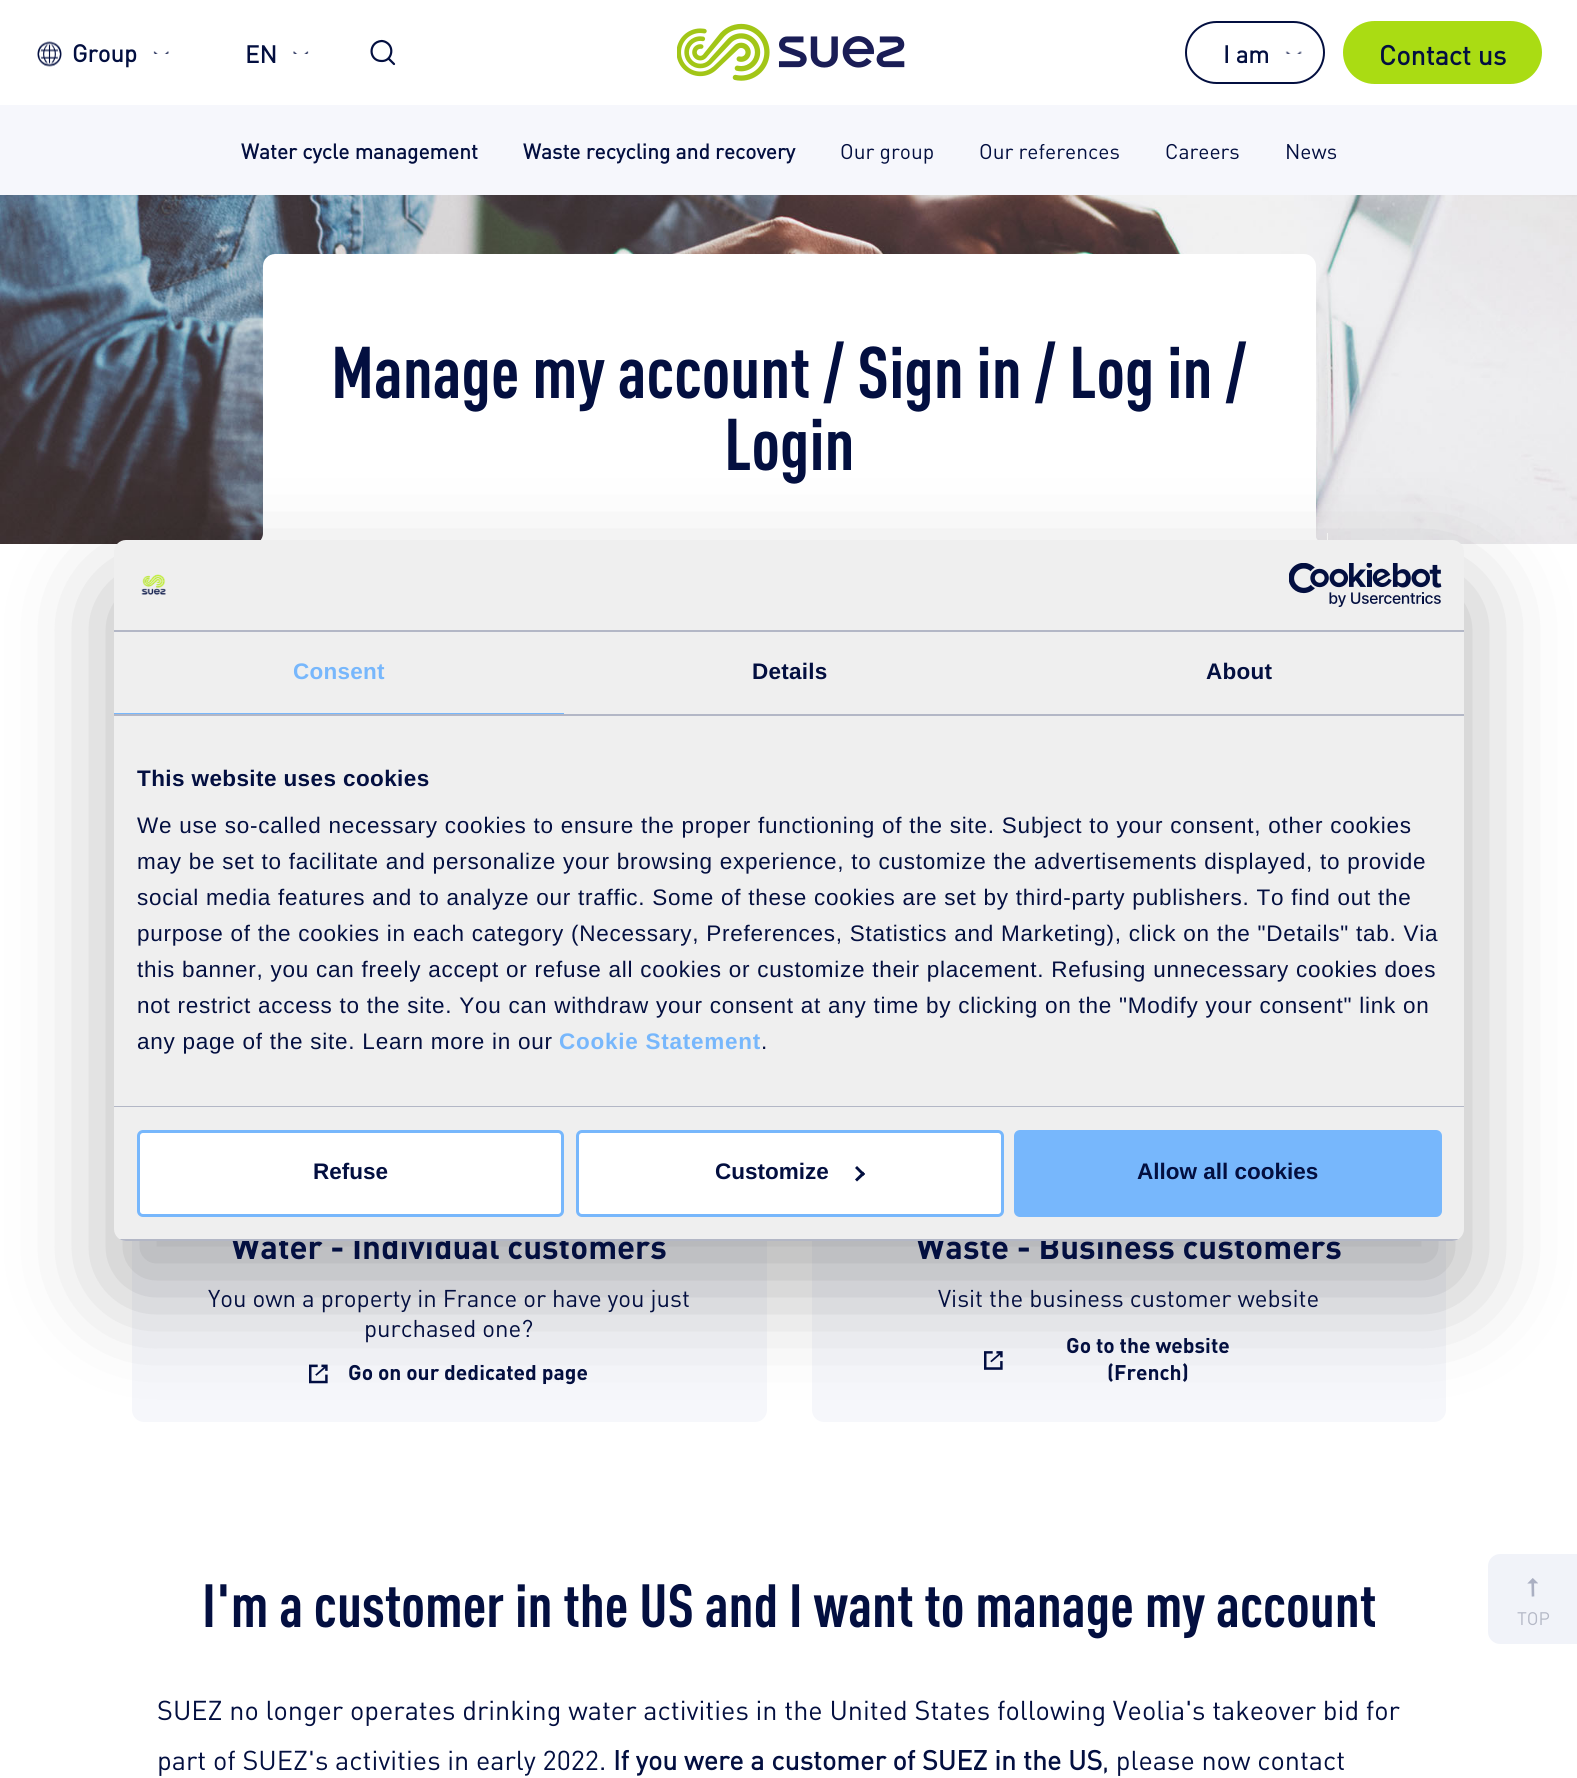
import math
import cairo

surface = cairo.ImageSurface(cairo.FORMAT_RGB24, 1577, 1778)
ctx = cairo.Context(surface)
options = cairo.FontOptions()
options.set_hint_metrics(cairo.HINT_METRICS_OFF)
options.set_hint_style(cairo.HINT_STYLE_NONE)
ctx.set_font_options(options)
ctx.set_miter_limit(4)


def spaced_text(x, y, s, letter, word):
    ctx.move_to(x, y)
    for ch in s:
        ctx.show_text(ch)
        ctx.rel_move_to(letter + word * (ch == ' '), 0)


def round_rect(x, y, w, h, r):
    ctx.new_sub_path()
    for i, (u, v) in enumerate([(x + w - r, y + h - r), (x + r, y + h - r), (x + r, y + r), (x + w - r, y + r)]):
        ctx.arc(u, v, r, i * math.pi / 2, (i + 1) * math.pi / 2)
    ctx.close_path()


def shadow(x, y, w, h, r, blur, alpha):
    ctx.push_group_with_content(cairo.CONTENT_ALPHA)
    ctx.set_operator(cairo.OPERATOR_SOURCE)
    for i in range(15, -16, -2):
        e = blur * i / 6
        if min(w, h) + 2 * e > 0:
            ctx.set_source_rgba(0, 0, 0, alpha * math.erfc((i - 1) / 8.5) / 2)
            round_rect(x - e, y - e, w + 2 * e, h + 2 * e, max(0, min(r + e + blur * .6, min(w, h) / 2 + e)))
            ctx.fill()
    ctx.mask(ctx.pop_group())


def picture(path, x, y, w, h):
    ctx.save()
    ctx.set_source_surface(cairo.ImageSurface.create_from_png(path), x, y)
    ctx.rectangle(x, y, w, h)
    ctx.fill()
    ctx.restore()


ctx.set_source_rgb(1, 1, 1)
ctx.paint()
picture("img1.png", 37, 41, 25, 26)
ctx.select_font_face("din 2", cairo.FONT_SLANT_NORMAL, cairo.FONT_WEIGHT_BOLD)
ctx.set_font_size(24)
ctx.set_source_rgb(0.012, 0.059, 0.251)
ctx.move_to(72, 62)
ctx.show_text("Group")
picture("img2.png", 153, 51, 16, 3)
ctx.move_to(245, 63)
ctx.show_text("EN")
picture("img3.png", 293, 51, 16, 3)
ctx.new_path()
ctx.move_to(381.5, 61)
ctx.curve_to(391.5, 61.5, 395, 47.5, 386.5, 42.5)
ctx.curve_to(385, 41.5, 383, 41, 381.5, 41)
ctx.curve_to(368, 42, 368.5, 61, 381.5, 61)
ctx.close_path()
ctx.move_to(394, 64)
ctx.line_to(388.5, 58.5)
ctx.set_line_width(2.2)
ctx.set_line_cap(cairo.LINE_CAP_ROUND)
ctx.set_line_join(cairo.LINE_JOIN_ROUND)
ctx.stroke()
picture("img4.png", 677, 23, 228, 58)
round_rect(1186, 22, 138, 61, 30.5)
ctx.set_line_width(2)
ctx.set_line_cap(cairo.LINE_CAP_BUTT)
ctx.set_line_join(cairo.LINE_JOIN_MITER)
ctx.stroke()
ctx.move_to(1223, 63)
ctx.show_text("I am")
picture("img5.png", 1285, 51, 17, 3)
ctx.set_source_rgb(0.667, 0.863, 0.078)
round_rect(1343, 21, 199, 63, 31.5)
ctx.fill()
ctx.set_font_size(27)
ctx.set_source_rgb(0.012, 0.059, 0.251)
ctx.move_to(1379, 65)
ctx.show_text("Contact us")
ctx.set_source_rgb(0.961, 0.965, 0.988)
ctx.rectangle(0, 105, 1577, 90)
ctx.fill()
ctx.set_font_size(21)
ctx.set_source_rgb(0.012, 0.059, 0.251)
ctx.move_to(241, 159)
ctx.show_text("Water cycle management")
ctx.move_to(523, 159)
ctx.show_text("Waste recycling and recovery")
ctx.select_font_face("din")
ctx.move_to(840, 159)
ctx.show_text("Our group")
ctx.move_to(979, 159)
ctx.show_text("Our references")
ctx.move_to(1165, 159)
ctx.show_text("Careers")
ctx.move_to(1285, 159)
ctx.show_text("News")
picture("img6.png", 0, 195, 1577, 349)
ctx.set_source_rgb(1, 1, 1)
ctx.new_path()
ctx.move_to(275, 254)
ctx.line_to(1304, 254)
ctx.curve_to(1310.5, 254, 1316, 259.5, 1316, 266)
ctx.line_to(1316, 582.5)
ctx.curve_to(1316, 583.5, 1315.5, 584, 1314.5, 584)
ctx.line_to(264.5, 584)
ctx.curve_to(263.5, 584, 263, 583.5, 263, 582.5)
ctx.line_to(263, 266)
ctx.curve_to(263, 259.5, 268.5, 254, 275, 254)
ctx.close_path()
ctx.fill()
ctx.select_font_face("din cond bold", cairo.FONT_SLANT_NORMAL, cairo.FONT_WEIGHT_BOLD)
ctx.set_font_size(72)
ctx.set_source_rgb(0.012, 0.059, 0.251)
ctx.move_to(331, 398)
ctx.show_text("Manage my account / Sign in / Log in /")
ctx.move_to(724, 470)
ctx.show_text("Login")
ctx.save()
ctx.rectangle(251, 533, 27, 12)
ctx.clip()
ctx.new_path()
ctx.move_to(224, 506)
ctx.line_to(290, 506)
ctx.line_to(290, 533)
ctx.curve_to(290, 554.5, 272.5, 572, 251, 572)
ctx.line_to(224, 572)
ctx.close_path()
ctx.set_source_rgb(1, 1, 1)
ctx.set_line_width(54)
ctx.stroke()
ctx.restore()
ctx.save()
ctx.rectangle(1301, 533, 27, 12)
ctx.clip()
ctx.new_path()
ctx.move_to(1354, 505.5)
ctx.line_to(1288, 505.5)
ctx.line_to(1288, 532.5)
ctx.curve_to(1288, 554, 1305.5, 571.5, 1327, 571.5)
ctx.line_to(1354, 571.5)
ctx.close_path()
ctx.set_source_rgb(1, 1, 1)
ctx.set_line_width(54)
ctx.stroke()
ctx.restore()
ctx.set_source_rgb(0.961, 0.965, 0.984)
round_rect(132, 1013, 635, 409, 12)
ctx.fill()
picture("img9.png", 309, 1364, 19, 20)
round_rect(812, 1013, 634, 409, 12)
ctx.fill()
picture("img10.png", 984, 1351, 19, 19)
ctx.set_source_rgb(0, 0, 0)
shadow(114, 588, 1350, 701, 12, 51, 0.3)
ctx.select_font_face("din", cairo.FONT_SLANT_NORMAL, cairo.FONT_WEIGHT_BOLD)
ctx.set_font_size(33)
ctx.set_source_rgb(0.012, 0.059, 0.251)
ctx.move_to(231, 1259)
ctx.show_text("Water - Individual customers")
ctx.move_to(916, 1259)
ctx.show_text("Waste - Business customers")
ctx.set_source_rgb(0.937, 0.937, 0.937)
round_rect(114, 540, 1350, 701, 12)
ctx.fill()
ctx.set_source_rgb(0.702, 0.718, 0.776)
ctx.rectangle(114, 630, 1350, 2)
ctx.fill()
picture("img7.png", 141, 574, 25, 21)
picture("img8.png", 1289, 563, 153, 44)
ctx.rectangle(114, 714, 1350, 2)
ctx.fill()
ctx.set_source_rgb(0.467, 0.718, 0.988)
ctx.rectangle(114, 713, 450, 1)
ctx.fill()
ctx.select_font_face("Liberation Sans", cairo.FONT_SLANT_NORMAL, cairo.FONT_WEIGHT_BOLD)
ctx.set_font_size(22.5)
spaced_text(293, 679, "Consent", 0.25, 0)
ctx.set_source_rgb(0.012, 0.059, 0.251)
spaced_text(752, 679, "Details", 0.25, 0)
spaced_text(1206, 679, "About", 0.25, 0)
ctx.set_source_rgb(0.702, 0.718, 0.776)
ctx.rectangle(114, 1106, 1350, 1)
ctx.fill()
ctx.set_source_rgb(0.012, 0.059, 0.251)
spaced_text(137, 786, "This website uses cookies", 0.4, 0)
ctx.select_font_face("Liberation Sans")
spaced_text(137, 833, "We use so-called necessary cookies to ensure the proper functioning of the site. Subject to your consent, other cookies", 0.75, 0)
spaced_text(137, 869, "may be set to facilitate and personalize your browsing experience, to customize the advertisements displayed, to provide", 0.75, 0)
spaced_text(137, 905, "social media features and to analyze our traffic. Some of these cookies are set by third-party publishers. To find out the", 0.75, 0)
spaced_text(137, 941, "purpose of the cookies in each category (Necessary, Preferences, Statistics and Marketing), click on the \"Details\" tab. Via", 0.75, 0)
spaced_text(137, 977, "this banner, you can freely accept or refuse all cookies or customize their placement. Refusing unnecessary cookies does", 0.75, 0)
spaced_text(137, 1013, "not restrict access to the site. You can withdraw your consent at any time by clicking on the \"Modify your consent\" link on", 0.75, 0)
spaced_text(137, 1049, "any page of the site. Learn more in our", 0.75, 0)
ctx.select_font_face("Liberation Sans", cairo.FONT_SLANT_NORMAL, cairo.FONT_WEIGHT_BOLD)
ctx.set_source_rgb(0.467, 0.718, 0.988)
spaced_text(559, 1049, "Cookie Statement", 0.75, 0)
ctx.select_font_face("Liberation Sans")
ctx.set_source_rgb(0.012, 0.059, 0.251)
spaced_text(761, 1049, ".", 0.75, 0)
ctx.save()
round_rect(114, 540, 1350, 701, 12)
ctx.clip()
ctx.set_source_rgb(0.702, 0.718, 0.776)
ctx.rectangle(114, 1239, 1350, 2)
ctx.fill()
ctx.restore()
ctx.set_source_rgb(1, 1, 1)
round_rect(138.5, 1131.5, 424, 84, 4.5)
ctx.fill_preserve()
ctx.set_source_rgb(0.467, 0.718, 0.988)
ctx.set_line_width(3)
ctx.stroke()
ctx.select_font_face("Liberation Sans", cairo.FONT_SLANT_NORMAL, cairo.FONT_WEIGHT_BOLD)
ctx.set_source_rgb(0.012, 0.059, 0.251)
ctx.move_to(313, 1179)
ctx.show_text("Refuse")
ctx.set_source_rgb(1, 1, 1)
round_rect(577.5, 1131.5, 425, 84, 4.5)
ctx.fill_preserve()
ctx.set_source_rgb(0.467, 0.718, 0.988)
ctx.stroke()
ctx.set_source_rgb(0.012, 0.059, 0.251)
ctx.move_to(715, 1179)
ctx.show_text("Customize")
ctx.new_path()
ctx.move_to(857, 1166)
ctx.line_to(865, 1174)
ctx.line_to(863, 1176)
ctx.line_to(855, 1168)
ctx.close_path()
ctx.fill()
ctx.new_path()
ctx.move_to(863, 1171.5)
ctx.line_to(865, 1174)
ctx.line_to(857, 1181.5)
ctx.line_to(855, 1179.5)
ctx.close_path()
ctx.fill()
ctx.set_source_rgb(0.467, 0.718, 0.988)
round_rect(1015.5, 1131.5, 425, 84, 4.5)
ctx.fill_preserve()
ctx.stroke()
ctx.set_source_rgb(0.012, 0.059, 0.251)
ctx.move_to(1137, 1179)
ctx.show_text("Allow all cookies")
ctx.select_font_face("din")
ctx.set_font_size(24)
ctx.move_to(208, 1307)
ctx.show_text("You own a property in France or have you just")
ctx.move_to(364, 1337)
ctx.show_text("purchased one?")
ctx.select_font_face("din", cairo.FONT_SLANT_NORMAL, cairo.FONT_WEIGHT_BOLD)
ctx.set_font_size(21)
ctx.move_to(348, 1380)
ctx.show_text("Go on our dedicated page")
ctx.select_font_face("din")
ctx.set_font_size(24)
ctx.move_to(938, 1307)
ctx.show_text("Visit the business customer website")
ctx.select_font_face("din", cairo.FONT_SLANT_NORMAL, cairo.FONT_WEIGHT_BOLD)
ctx.set_font_size(21)
ctx.move_to(1066, 1353)
ctx.show_text("Go to the website")
ctx.move_to(1107, 1380)
ctx.show_text("(French)")
ctx.select_font_face("din cond bold", cairo.FONT_SLANT_NORMAL, cairo.FONT_WEIGHT_BOLD)
ctx.set_font_size(60)
ctx.move_to(202, 1627)
ctx.show_text("I'm a customer in the US and I want to manage my account")
ctx.select_font_face("din")
ctx.set_font_size(27)
ctx.move_to(157, 1720)
ctx.show_text("SUEZ no longer operates drinking water activities in the United States following Veolia's takeover bid for")
ctx.move_to(157, 1770)
ctx.show_text("part of SUEZ's activities in early 2022.")
ctx.select_font_face("din 2", cairo.FONT_SLANT_NORMAL, cairo.FONT_WEIGHT_BOLD)
ctx.move_to(613, 1770)
ctx.show_text("If you were a customer of SUEZ in the US")
ctx.select_font_face("din")
ctx.move_to(1102, 1770)
ctx.show_text(", please now contact")
ctx.set_source_rgb(0.945, 0.953, 0.973)
ctx.new_path()
ctx.move_to(1500, 1554)
ctx.line_to(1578, 1554)
ctx.line_to(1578, 1644)
ctx.line_to(1500, 1644)
ctx.curve_to(1493.5, 1644, 1488, 1638.5, 1488, 1632)
ctx.line_to(1488, 1566)
ctx.curve_to(1488, 1559.5, 1493.5, 1554, 1500, 1554)
ctx.close_path()
ctx.fill()
picture("img11.png", 1527, 1578, 11, 19)
ctx.set_font_size(18)
ctx.set_source_rgb(0.706, 0.722, 0.776)
ctx.move_to(1517, 1625)
ctx.show_text("TOP")
surface.write_to_png("page.png")
